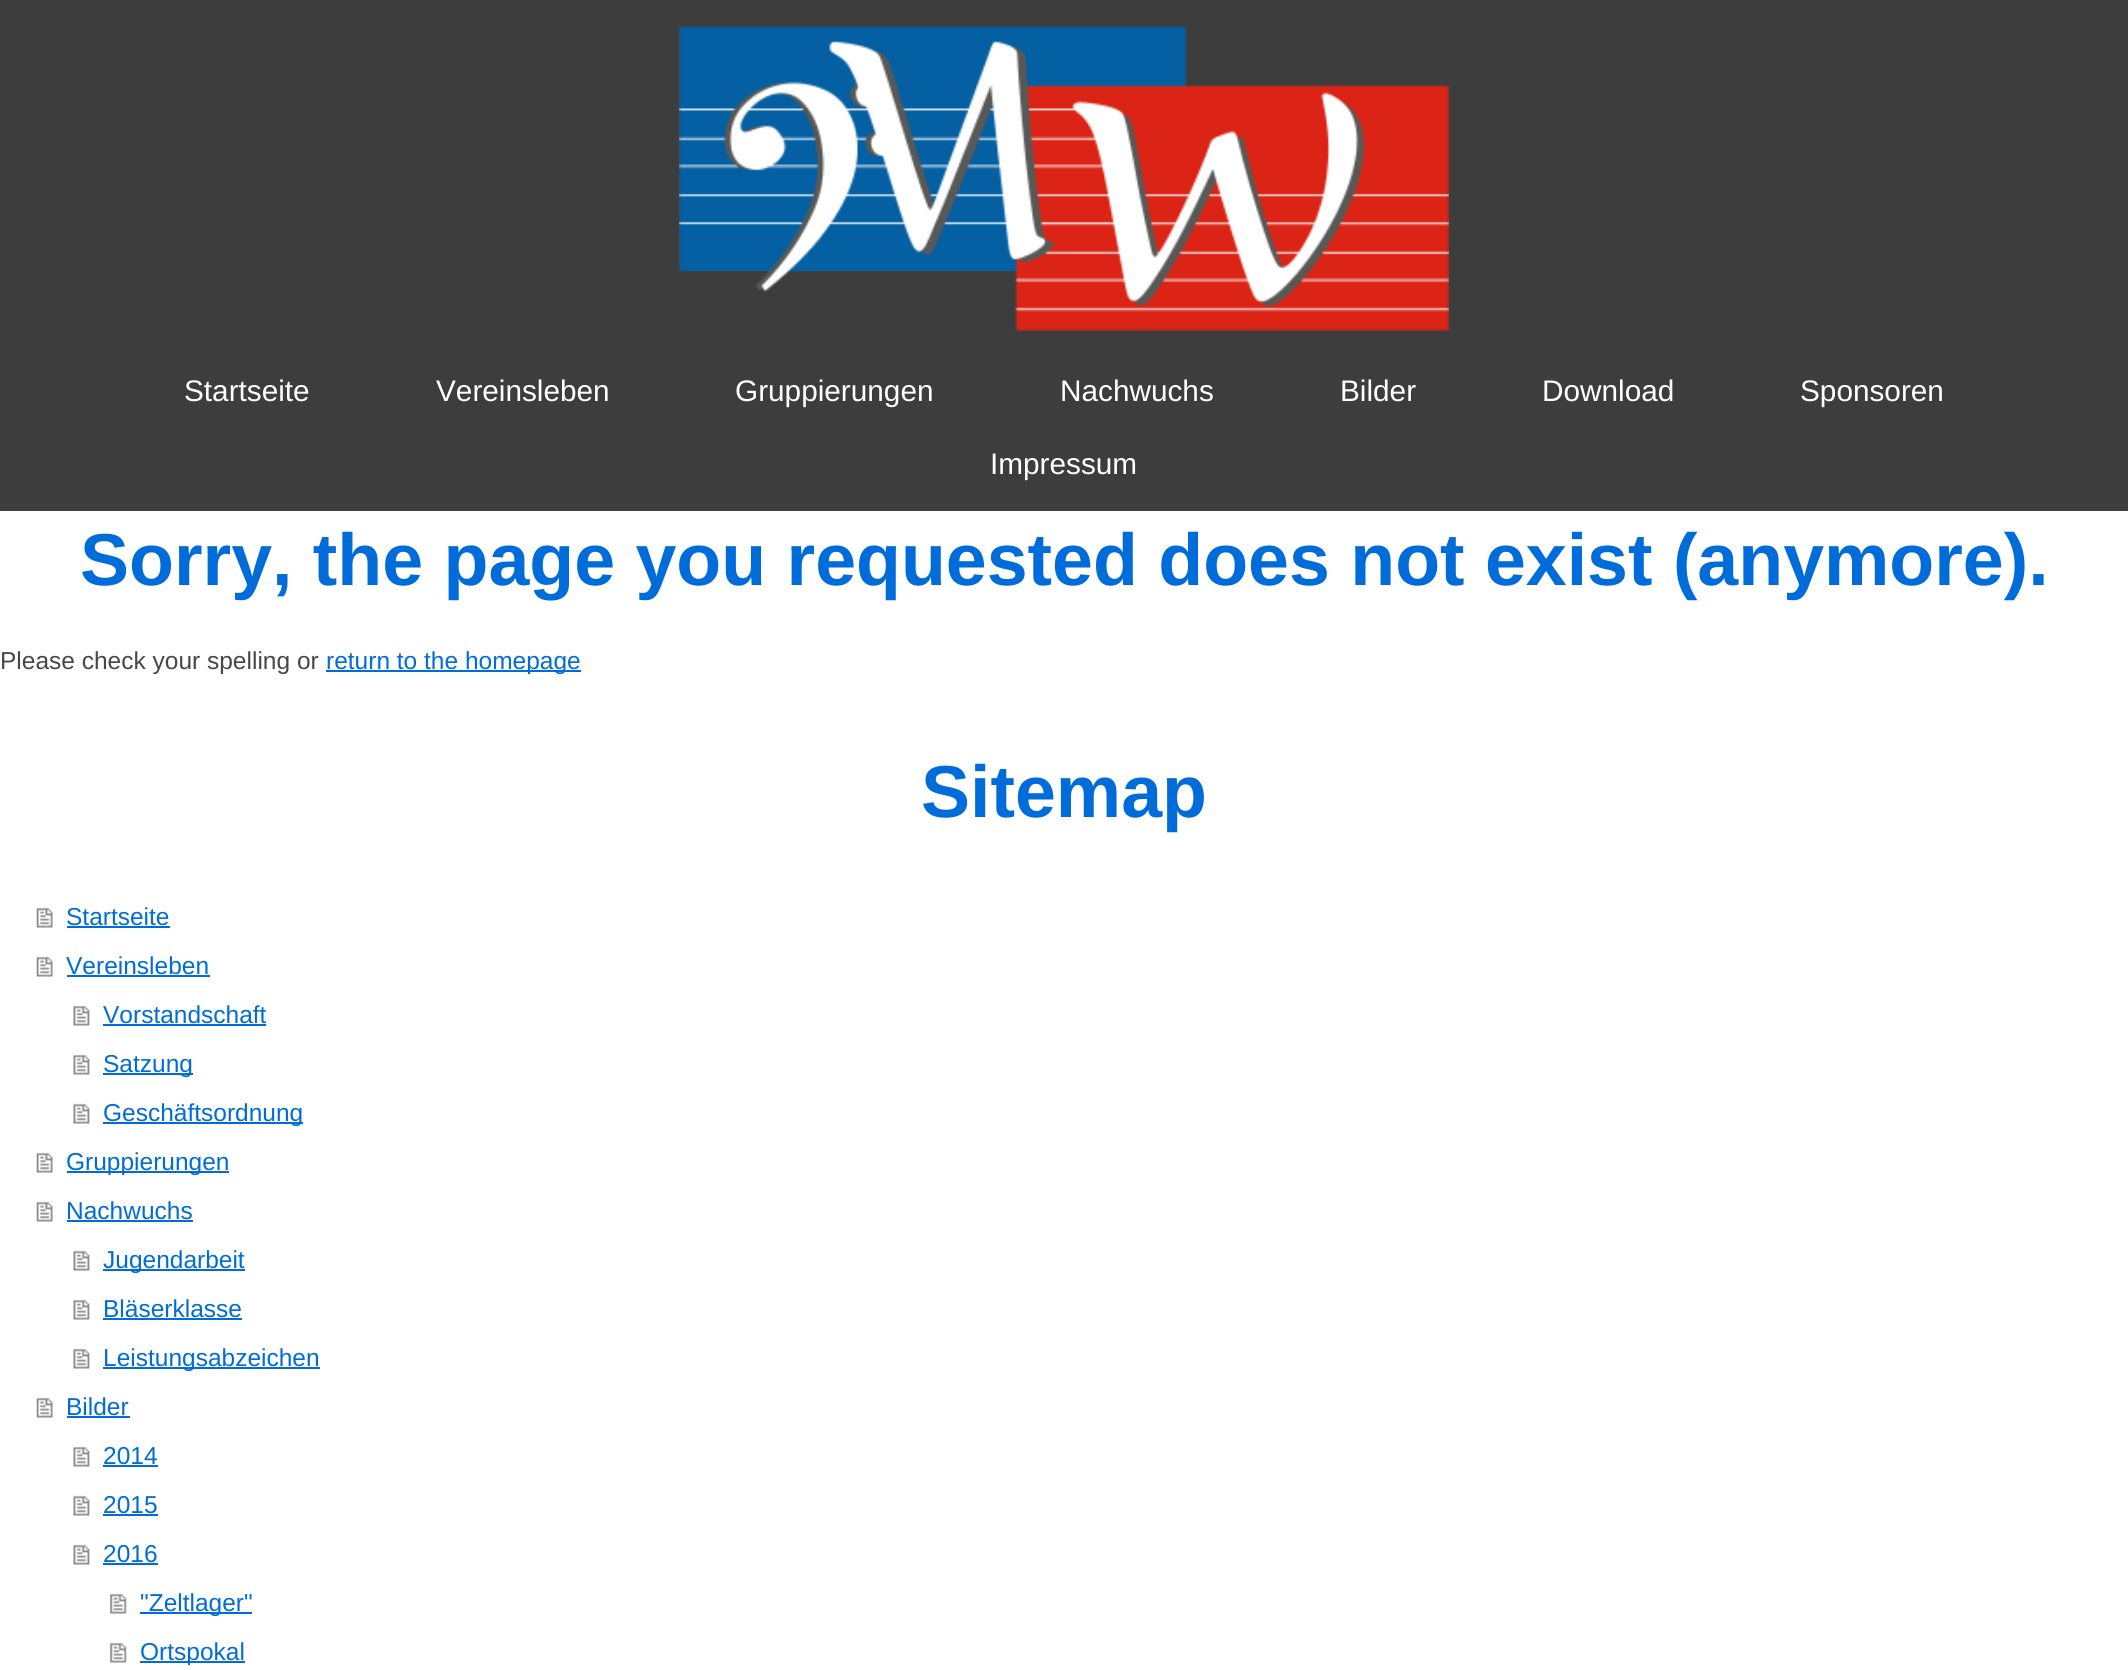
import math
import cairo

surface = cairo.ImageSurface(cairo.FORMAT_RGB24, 2128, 1670)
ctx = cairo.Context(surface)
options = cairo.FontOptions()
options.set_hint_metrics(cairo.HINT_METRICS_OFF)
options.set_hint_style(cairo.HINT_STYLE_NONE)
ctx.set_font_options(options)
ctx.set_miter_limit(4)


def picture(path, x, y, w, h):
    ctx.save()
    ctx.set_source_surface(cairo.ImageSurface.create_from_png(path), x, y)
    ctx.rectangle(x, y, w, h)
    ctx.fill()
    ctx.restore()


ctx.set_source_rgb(1, 1, 1)
ctx.paint()
ctx.set_source_rgb(0.239, 0.239, 0.243)
ctx.rectangle(0, 0, 2128, 511)
ctx.fill()
picture("img1.png", 679, 26, 770, 305)
ctx.select_font_face("Liberation Sans")
ctx.set_font_size(29.75)
ctx.set_source_rgb(1, 1, 1)
ctx.move_to(184, 401)
ctx.show_text("Startseite")
ctx.move_to(436, 401)
ctx.show_text("Vereinsleben")
ctx.move_to(735, 401)
ctx.show_text("Gruppierungen")
ctx.move_to(1060, 401)
ctx.show_text("Nachwuchs")
ctx.move_to(1340, 401)
ctx.show_text("Bilder")
ctx.move_to(1542, 401)
ctx.show_text("Download")
ctx.move_to(1800, 401)
ctx.show_text("Sponsoren")
ctx.move_to(990, 474)
ctx.show_text("Impressum")
ctx.select_font_face("Liberation Sans", cairo.FONT_SLANT_NORMAL, cairo.FONT_WEIGHT_BOLD)
ctx.set_font_size(73.5)
ctx.set_source_rgb(0, 0.424, 0.851)
ctx.move_to(80, 585)
ctx.show_text("Sorry, the page you requested does not exist (anymore).")
ctx.select_font_face("Liberation Sans")
ctx.set_font_size(24.5)
ctx.set_source_rgb(0.278, 0.278, 0.278)
ctx.move_to(0, 669)
ctx.show_text("Please check your spelling or")
ctx.set_source_rgb(0, 0.424, 0.851)
ctx.rectangle(326, 670, 255, 2)
ctx.fill()
ctx.move_to(326, 669)
ctx.show_text("return to the homepage")
ctx.select_font_face("Liberation Sans", cairo.FONT_SLANT_NORMAL, cairo.FONT_WEIGHT_BOLD)
ctx.set_font_size(73.5)
ctx.move_to(921, 817)
ctx.show_text("Sitemap")
picture("img2.png", 36, 907, 17, 21)
ctx.select_font_face("Liberation Sans")
ctx.set_font_size(24.5)
ctx.move_to(66, 925)
ctx.show_text("Startseite")
ctx.rectangle(67, 926, 103, 2)
ctx.fill()
picture("img2.png", 36, 956, 17, 21)
ctx.move_to(66, 974)
ctx.show_text("Vereinsleben")
ctx.rectangle(67, 975, 143, 2)
ctx.fill()
picture("img3.png", 73, 1005, 17, 21)
ctx.move_to(103, 1023)
ctx.show_text("Vorstandschaft")
ctx.rectangle(103, 1024, 163, 2)
ctx.fill()
picture("img3.png", 73, 1054, 17, 21)
ctx.rectangle(103, 1073, 90, 2)
ctx.fill()
ctx.move_to(103, 1072)
ctx.show_text("Satzung")
picture("img3.png", 73, 1103, 17, 21)
ctx.rectangle(103, 1122, 200, 2)
ctx.fill()
ctx.move_to(103, 1121)
ctx.show_text("Geschäftsordnung")
picture("img2.png", 36, 1152, 17, 21)
ctx.rectangle(67, 1171, 162, 2)
ctx.fill()
ctx.move_to(66, 1170)
ctx.show_text("Gruppierungen")
picture("img2.png", 36, 1201, 17, 21)
ctx.move_to(66, 1219)
ctx.show_text("Nachwuchs")
ctx.rectangle(67, 1220, 126, 2)
ctx.fill()
picture("img3.png", 73, 1250, 17, 21)
ctx.rectangle(103, 1269, 142, 2)
ctx.fill()
ctx.move_to(103, 1268)
ctx.show_text("Jugendarbeit")
picture("img3.png", 73, 1299, 17, 21)
ctx.move_to(103, 1317)
ctx.show_text("Bläserklasse")
ctx.rectangle(103, 1318, 139, 2)
ctx.fill()
picture("img3.png", 73, 1348, 17, 21)
ctx.rectangle(103, 1367, 217, 2)
ctx.fill()
ctx.move_to(103, 1366)
ctx.show_text("Leistungsabzeichen")
picture("img2.png", 36, 1397, 17, 21)
ctx.move_to(66, 1415)
ctx.show_text("Bilder")
ctx.rectangle(67, 1416, 63, 2)
ctx.fill()
picture("img3.png", 73, 1446, 17, 21)
ctx.move_to(103, 1464)
ctx.show_text("2014")
ctx.rectangle(103, 1465, 55, 2)
ctx.fill()
picture("img3.png", 73, 1495, 17, 21)
ctx.move_to(103, 1513)
ctx.show_text("2015")
ctx.rectangle(103, 1514, 55, 2)
ctx.fill()
picture("img3.png", 73, 1544, 17, 21)
ctx.move_to(103, 1562)
ctx.show_text("2016")
ctx.rectangle(103, 1563, 55, 2)
ctx.fill()
picture("img4.png", 110, 1593, 17, 21)
ctx.rectangle(140, 1612, 112, 2)
ctx.fill()
ctx.move_to(140, 1611)
ctx.show_text("\"Zeltlager\"")
picture("img4.png", 110, 1642, 17, 21)
ctx.rectangle(140, 1661, 105, 2)
ctx.fill()
ctx.move_to(140, 1660)
ctx.show_text("Ortspokal")
surface.write_to_png("page.png")
